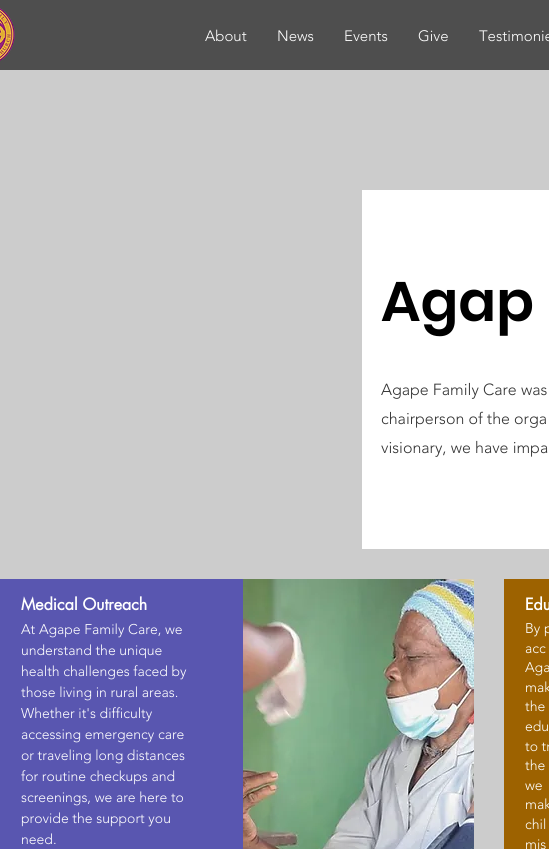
import math
import cairo

surface = cairo.ImageSurface(cairo.FORMAT_RGB24, 549, 849)
ctx = cairo.Context(surface)
options = cairo.FontOptions()
options.set_hint_metrics(cairo.HINT_METRICS_OFF)
options.set_hint_style(cairo.HINT_STYLE_NONE)
ctx.set_font_options(options)
ctx.set_miter_limit(4)


def picture(path, x, y, w, h):
    ctx.save()
    ctx.set_source_surface(cairo.ImageSurface.create_from_png(path), x, y)
    ctx.rectangle(x, y, w, h)
    ctx.fill()
    ctx.restore()


ctx.set_source_rgb(0.8, 0.8, 0.8)
ctx.paint()
ctx.set_source_rgb(0.306, 0.306, 0.306)
ctx.rectangle(0, 0, 549, 70)
ctx.fill()
picture("img1.png", 0, 8, 15, 53)
ctx.select_font_face("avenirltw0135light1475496 Light")
ctx.set_font_size(15)
ctx.set_source_rgb(1, 1, 1)
ctx.move_to(205, 41)
ctx.show_text("About")
ctx.move_to(277, 41)
ctx.show_text("News")
ctx.move_to(344, 41)
ctx.show_text("Events")
ctx.move_to(418, 41)
ctx.show_text("Give")
ctx.move_to(479, 41)
ctx.show_text("Testimonie")
ctx.rectangle(362, 190, 187, 359)
ctx.fill()
ctx.select_font_face("Poppins SemiBold")
ctx.set_font_size(56)
ctx.set_source_rgb(0, 0, 0)
ctx.move_to(381, 321)
ctx.show_text("Agap")
ctx.select_font_face("avenirltw0135light1475496 Light")
ctx.set_font_size(16)
ctx.set_source_rgb(0.2, 0.2, 0.2)
ctx.move_to(381, 395)
ctx.show_text("Agape Family Care was")
ctx.move_to(381, 424)
ctx.show_text("chairperson of the orga")
ctx.move_to(381, 453)
ctx.show_text("visionary, we have impa")
ctx.set_source_rgb(0.349, 0.337, 0.69)
ctx.rectangle(0, 579, 243, 270)
ctx.fill()
ctx.select_font_face("futura", cairo.FONT_SLANT_NORMAL, cairo.FONT_WEIGHT_BOLD)
ctx.set_source_rgb(1, 1, 1)
ctx.move_to(21, 610)
ctx.show_text("Medical Outreach")
picture("img2.png", 243, 579, 231, 270)
ctx.select_font_face("avenirltw0135light1475496 Light")
ctx.set_font_size(14)
ctx.move_to(21, 634)
ctx.show_text("At Agape Family Care, we")
ctx.move_to(21, 655)
ctx.show_text("understand the unique")
ctx.move_to(21, 676)
ctx.show_text("health challenges faced by")
ctx.move_to(21, 697)
ctx.show_text("those living in rural areas.")
ctx.move_to(21, 718)
ctx.show_text("Whether it's difficulty")
ctx.move_to(21, 739)
ctx.show_text("accessing emergency care")
ctx.move_to(21, 760)
ctx.show_text("or traveling long distances")
ctx.move_to(21, 781)
ctx.show_text("for routine checkups and")
ctx.move_to(21, 802)
ctx.show_text("screenings, we are here to")
ctx.move_to(21, 823)
ctx.show_text("provide the support you")
ctx.move_to(21, 844)
ctx.show_text("need.")
ctx.set_source_rgb(0.616, 0.384, 0)
ctx.rectangle(504, 579, 45, 270)
ctx.fill()
ctx.select_font_face("futura", cairo.FONT_SLANT_NORMAL, cairo.FONT_WEIGHT_BOLD)
ctx.set_font_size(16)
ctx.set_source_rgb(1, 1, 1)
ctx.move_to(525, 610)
ctx.show_text("Edu")
ctx.select_font_face("avenirltw0135light1475496 Light")
ctx.set_font_size(14)
ctx.move_to(525, 633)
ctx.show_text("By p")
ctx.move_to(525, 653)
ctx.show_text("acc")
ctx.move_to(525, 672)
ctx.show_text("Aga")
ctx.move_to(525, 692)
ctx.show_text("mak")
ctx.move_to(525, 711)
ctx.show_text("the")
ctx.move_to(525, 731)
ctx.show_text("edu")
ctx.move_to(525, 751)
ctx.show_text("to tr")
ctx.move_to(525, 770)
ctx.show_text("the")
ctx.move_to(525, 790)
ctx.show_text("we")
ctx.move_to(525, 809)
ctx.show_text("mak")
ctx.move_to(525, 829)
ctx.show_text("chil")
ctx.move_to(525, 849)
ctx.show_text("mis")
surface.write_to_png("page.png")
